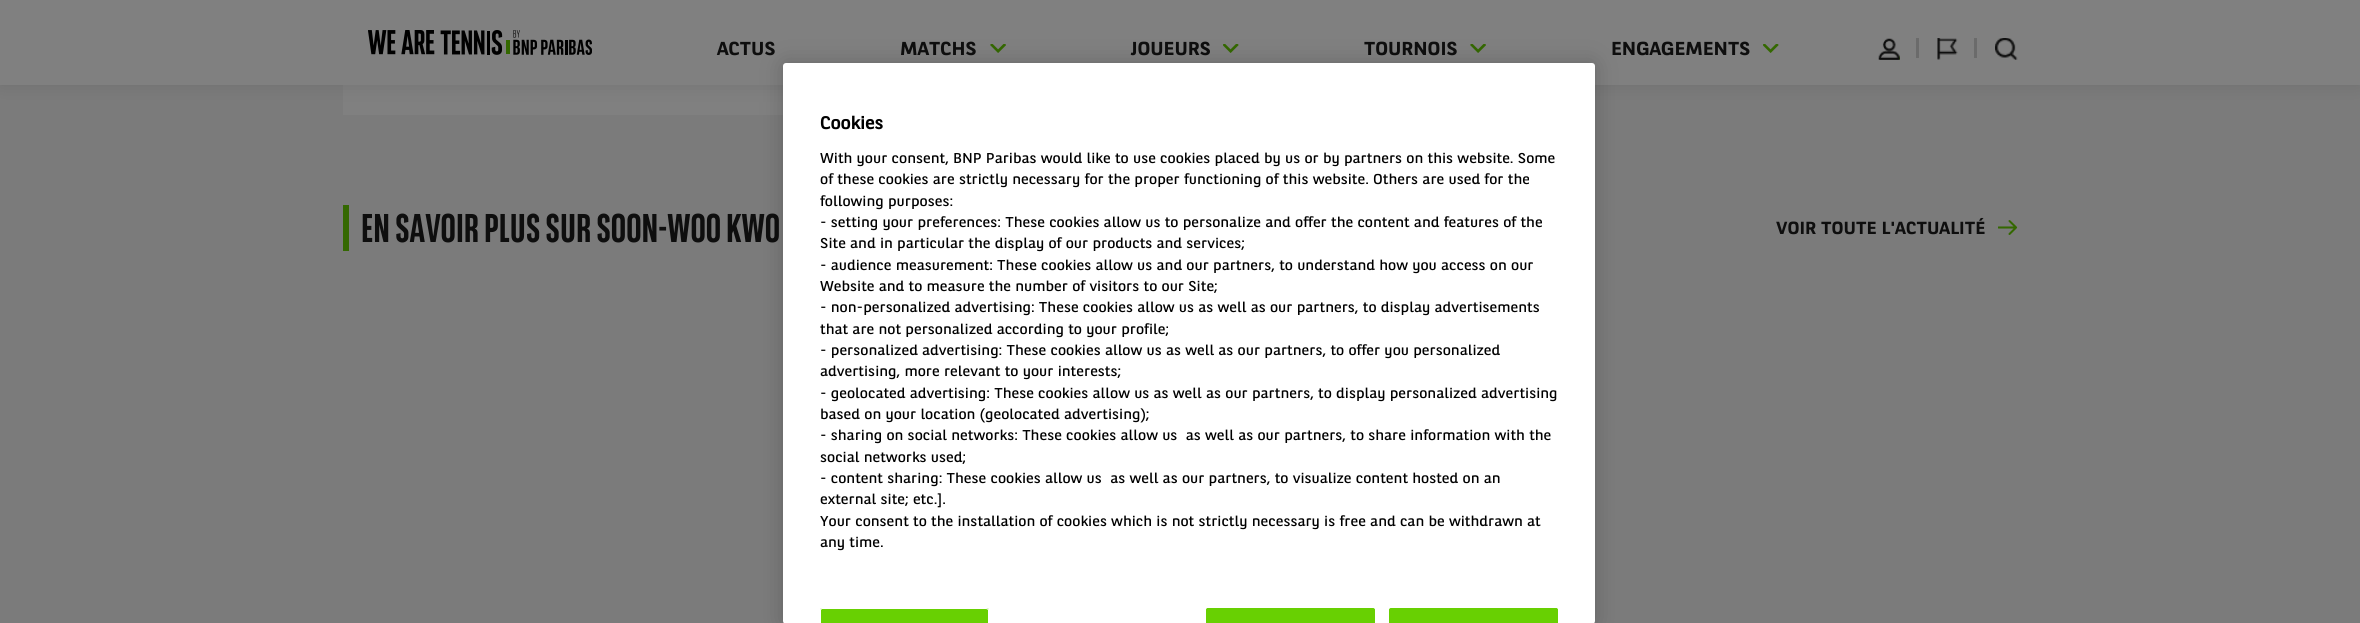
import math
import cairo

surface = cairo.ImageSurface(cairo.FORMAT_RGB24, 2360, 623)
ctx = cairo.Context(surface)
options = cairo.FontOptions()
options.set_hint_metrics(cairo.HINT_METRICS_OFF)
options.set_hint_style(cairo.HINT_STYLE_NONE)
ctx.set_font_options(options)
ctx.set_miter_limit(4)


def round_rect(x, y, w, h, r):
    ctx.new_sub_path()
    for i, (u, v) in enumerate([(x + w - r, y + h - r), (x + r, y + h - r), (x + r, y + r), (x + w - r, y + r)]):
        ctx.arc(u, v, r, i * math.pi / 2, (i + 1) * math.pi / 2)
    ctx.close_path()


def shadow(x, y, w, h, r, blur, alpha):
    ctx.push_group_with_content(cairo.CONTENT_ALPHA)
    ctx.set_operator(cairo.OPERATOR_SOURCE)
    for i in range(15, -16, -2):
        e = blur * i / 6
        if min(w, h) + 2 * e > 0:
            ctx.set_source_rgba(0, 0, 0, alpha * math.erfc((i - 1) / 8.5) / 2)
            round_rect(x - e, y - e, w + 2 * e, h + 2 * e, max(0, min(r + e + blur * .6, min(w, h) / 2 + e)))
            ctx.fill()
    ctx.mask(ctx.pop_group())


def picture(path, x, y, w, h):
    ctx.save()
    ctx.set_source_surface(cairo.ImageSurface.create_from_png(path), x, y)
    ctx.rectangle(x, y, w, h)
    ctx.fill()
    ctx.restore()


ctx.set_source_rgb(0.482, 0.482, 0.482)
ctx.paint()
ctx.set_source_rgb(0.502, 0.502, 0.502)
ctx.rectangle(343, 85, 440, 30)
ctx.fill()
ctx.set_source_rgb(0, 0, 0)
shadow(0, 0, 2360, 85, 0, 9.5, 0.1)
ctx.set_source_rgb(0.502, 0.502, 0.502)
ctx.rectangle(0, 0, 2360, 85)
ctx.fill()
picture("img1.png", 368, 30, 224, 25)
ctx.select_font_face("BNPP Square", cairo.FONT_SLANT_NORMAL, cairo.FONT_WEIGHT_BOLD)
ctx.set_font_size(18.75)
ctx.set_source_rgb(0.055, 0.055, 0.055)
ctx.move_to(717, 55)
ctx.show_text("ACTUS")
ctx.move_to(900, 55)
ctx.show_text("MATCHS")
picture("img2.png", 990, 44, 16, 9)
ctx.move_to(1131, 55)
ctx.show_text("JOUEURS")
picture("img3.png", 1223, 44, 16, 9)
ctx.move_to(1364, 55)
ctx.show_text("TOURNOIS")
picture("img2.png", 1470, 44, 16, 9)
ctx.move_to(1611, 55)
ctx.show_text("ENGAGEMENTS")
picture("img3.png", 1763, 44, 16, 9)
picture("img4.png", 1878, 38, 22, 22)
ctx.set_source_rgb(0.42, 0.42, 0.42)
ctx.rectangle(1916, 38, 3, 20)
ctx.fill()
picture("img5.png", 1937, 38, 21, 22)
ctx.rectangle(1974, 38, 3, 20)
ctx.fill()
picture("img6.png", 1995, 38, 23, 22)
ctx.set_source_rgb(0.204, 0.408, 0.004)
ctx.rectangle(343, 205, 6, 46)
ctx.fill()
ctx.select_font_face("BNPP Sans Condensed", cairo.FONT_SLANT_NORMAL, cairo.FONT_WEIGHT_BOLD)
ctx.set_font_size(40)
ctx.set_source_rgb(0.055, 0.055, 0.055)
ctx.move_to(361, 242)
ctx.show_text("EN SAVOIR PLUS SUR SOON-WOO KWO")
ctx.select_font_face("BNPP Square", cairo.FONT_SLANT_NORMAL, cairo.FONT_WEIGHT_BOLD)
ctx.set_font_size(17.5)
ctx.move_to(1776, 234)
ctx.show_text("VOIR TOUTE L'ACTUALITÉ")
picture("img7.png", 1998, 220, 20, 15)
ctx.set_source_rgb(0, 0, 0)
shadow(783, 63, 812, 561, 3, 11, 0.2)
ctx.set_source_rgb(1, 1, 1)
round_rect(783, 63, 812, 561, 3)
ctx.fill()
ctx.select_font_face("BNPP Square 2", cairo.FONT_SLANT_NORMAL, cairo.FONT_WEIGHT_BOLD)
ctx.set_source_rgb(0, 0, 0)
ctx.move_to(820, 129)
ctx.show_text("Cookies")
ctx.select_font_face("BNPP Square")
ctx.set_font_size(14.23)
ctx.move_to(820, 163)
ctx.show_text("With your consent, BNP Paribas would like to use cookies placed by us or by partners on this website. Some")
ctx.move_to(820, 184)
ctx.show_text("of these cookies are strictly necessary for the proper functioning of this website. Others are used for the")
ctx.move_to(820, 206)
ctx.show_text("following purposes:")
ctx.move_to(820, 227)
ctx.show_text("- setting your preferences: These cookies allow us to personalize and offer the content and features of the")
ctx.move_to(820, 248)
ctx.show_text("Site and in particular the display of our products and services;")
ctx.move_to(820, 270)
ctx.show_text("- audience measurement: These cookies allow us and our partners, to understand how you access on our")
ctx.move_to(820, 291)
ctx.show_text("Website and to measure the number of visitors to our Site;")
ctx.move_to(820, 312)
ctx.show_text("- non-personalized advertising: These cookies allow us as well as our partners, to display advertisements")
ctx.move_to(820, 334)
ctx.show_text("that are not personalized according to your profile;")
ctx.move_to(820, 355)
ctx.show_text("- personalized advertising: These cookies allow us as well as our partners, to offer you personalized")
ctx.move_to(820, 376)
ctx.show_text("advertising, more relevant to your interests;")
ctx.move_to(820, 398)
ctx.show_text("- geolocated advertising: These cookies allow us as well as our partners, to display personalized advertising")
ctx.move_to(820, 419)
ctx.show_text("based on your location (geolocated advertising);")
ctx.move_to(820, 440)
ctx.show_text("- sharing on social networks: These cookies allow us  as well as our partners, to share information with the")
ctx.move_to(820, 462)
ctx.show_text("social networks used;")
ctx.move_to(820, 483)
ctx.show_text("- content sharing: These cookies allow us  as well as our partners, to visualize content hosted on an")
ctx.move_to(820, 504)
ctx.show_text("external site; etc.].")
ctx.move_to(820, 526)
ctx.show_text("Your consent to the installation of cookies which is not strictly necessary is free and can be withdrawn at")
ctx.move_to(820, 547)
ctx.show_text("any time.")
ctx.set_source_rgb(0.408, 0.816, 0.008)
ctx.new_path()
ctx.move_to(822.5, 608)
ctx.line_to(986.5, 608)
ctx.curve_to(988, 608, 989, 609, 989, 610.5)
ctx.line_to(989, 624)
ctx.line_to(820, 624)
ctx.line_to(820, 610.5)
ctx.curve_to(820, 609, 821, 608, 822.5, 608)
ctx.close_path()
ctx.fill()
ctx.set_source_rgb(1, 1, 1)
ctx.new_path()
ctx.move_to(822, 608)
ctx.curve_to(821, 608, 820, 609, 820, 610)
ctx.line_to(820, 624)
ctx.line_to(821, 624)
ctx.line_to(821, 610)
ctx.curve_to(821, 610, 822, 609, 822, 609)
ctx.line_to(986, 609)
ctx.curve_to(987, 609, 988, 610, 988, 610)
ctx.line_to(988, 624)
ctx.line_to(989, 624)
ctx.line_to(989, 610)
ctx.curve_to(989, 609, 988, 608, 986, 608)
ctx.close_path()
ctx.fill()
ctx.set_source_rgb(0.408, 0.816, 0.008)
ctx.new_path()
ctx.move_to(1208.5, 608)
ctx.line_to(1372.5, 608)
ctx.curve_to(1374, 608, 1375, 609, 1375, 610.5)
ctx.line_to(1375, 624)
ctx.line_to(1206, 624)
ctx.line_to(1206, 610.5)
ctx.curve_to(1206, 609, 1207, 608, 1208.5, 608)
ctx.close_path()
ctx.fill()
ctx.new_path()
ctx.move_to(1208, 608)
ctx.curve_to(1207, 608, 1206, 609, 1206, 610)
ctx.line_to(1206, 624)
ctx.line_to(1207, 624)
ctx.line_to(1207, 610)
ctx.curve_to(1207, 610, 1208, 609, 1208, 609)
ctx.line_to(1372, 609)
ctx.curve_to(1373, 609, 1374, 610, 1374, 610)
ctx.line_to(1374, 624)
ctx.line_to(1375, 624)
ctx.line_to(1375, 610)
ctx.curve_to(1375, 609, 1374, 608, 1372, 608)
ctx.close_path()
ctx.fill()
ctx.new_path()
ctx.move_to(1391.5, 608)
ctx.line_to(1555.5, 608)
ctx.curve_to(1557, 608, 1558, 609, 1558, 610.5)
ctx.line_to(1558, 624)
ctx.line_to(1389, 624)
ctx.line_to(1389, 610.5)
ctx.curve_to(1389, 609, 1390, 608, 1391.5, 608)
ctx.close_path()
ctx.fill()
ctx.new_path()
ctx.move_to(1392, 608)
ctx.curve_to(1390, 608, 1389, 609, 1389, 610)
ctx.line_to(1389, 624)
ctx.line_to(1390, 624)
ctx.line_to(1390, 610)
ctx.curve_to(1390, 610, 1391, 609, 1392, 609)
ctx.line_to(1556, 609)
ctx.curve_to(1556, 609, 1557, 610, 1557, 610)
ctx.line_to(1557, 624)
ctx.line_to(1558, 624)
ctx.line_to(1558, 610)
ctx.curve_to(1558, 609, 1557, 608, 1556, 608)
ctx.close_path()
ctx.fill()
surface.write_to_png("page.png")
